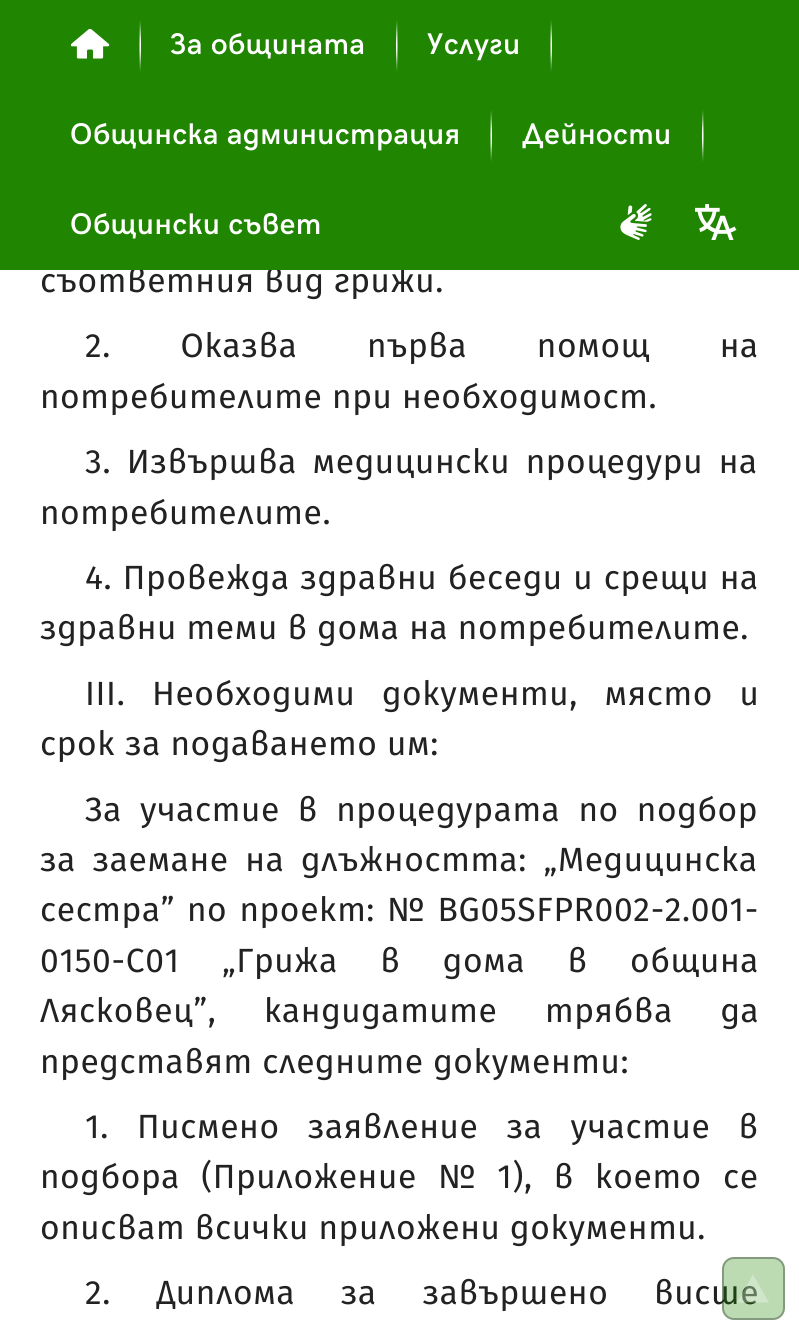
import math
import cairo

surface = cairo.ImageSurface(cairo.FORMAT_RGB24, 799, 1330)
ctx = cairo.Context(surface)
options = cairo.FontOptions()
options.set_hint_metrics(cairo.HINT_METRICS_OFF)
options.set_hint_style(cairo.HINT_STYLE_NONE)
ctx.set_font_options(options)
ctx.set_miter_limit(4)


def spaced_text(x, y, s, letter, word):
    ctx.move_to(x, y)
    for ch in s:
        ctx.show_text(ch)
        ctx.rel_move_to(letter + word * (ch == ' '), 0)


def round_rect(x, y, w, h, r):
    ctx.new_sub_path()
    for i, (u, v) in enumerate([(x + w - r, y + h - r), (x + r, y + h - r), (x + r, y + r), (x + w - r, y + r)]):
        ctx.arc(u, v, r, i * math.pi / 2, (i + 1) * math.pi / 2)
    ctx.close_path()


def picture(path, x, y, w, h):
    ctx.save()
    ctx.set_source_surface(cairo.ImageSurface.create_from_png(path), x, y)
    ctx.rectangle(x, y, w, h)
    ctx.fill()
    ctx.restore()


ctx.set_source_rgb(1, 1, 1)
ctx.paint()
ctx.select_font_face("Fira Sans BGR")
ctx.set_font_size(33.6)
ctx.set_source_rgb(0.133, 0.133, 0.133)
spaced_text(40, 292, "съответния вид грижи.", 0.65, 0)
ctx.set_source_rgb(0.125, 0.522, 0.004)
ctx.rectangle(0, 0, 799, 270)
ctx.fill()
picture("img1.png", 71, 29, 39, 30)
picture("img2.png", 139, 20, 2, 52)
ctx.select_font_face("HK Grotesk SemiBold")
ctx.set_font_size(30)
ctx.set_source_rgb(1, 1, 1)
spaced_text(170, 54, "За общината", 0.6, 0)
picture("img3.png", 396, 20, 2, 52)
spaced_text(427, 54, "Услуги", 0.6, 0)
picture("img2.png", 550, 20, 2, 52)
spaced_text(70, 144, "Общинска администрация", 0.6, 0)
picture("img2.png", 490, 110, 2, 52)
spaced_text(522, 144, "Дейности", 0.6, 0)
picture("img3.png", 702, 110, 2, 52)
spaced_text(70, 234, "Общински съвет", 0.6, 0)
picture("img4.png", 620, 204, 32, 36)
picture("img5.png", 695, 204, 42, 36)
ctx.select_font_face("Fira Sans BGR")
ctx.set_font_size(33.6)
ctx.set_source_rgb(0.133, 0.133, 0.133)
spaced_text(85, 357, "2. Оказва първа помощ на", 0.65, 60)
spaced_text(40, 408, "потребителите при необходимост.", 0.65, 0)
spaced_text(85, 473, "3. Извършва медицински процедури на", 0.65, 6)
spaced_text(40, 524, "потребителите.", 0.65, 0)
spaced_text(85, 589, "4. Провежда здравни беседи и срещи на", 0.65, 1)
spaced_text(40, 639, "здравни теми в дома на потребителите.", 0.65, 0)
spaced_text(85, 705, "ІІI. Необходими документи, място и", 0.65, 17)
spaced_text(40, 755, "срок за подаването им:", 0.65, 0)
spaced_text(85, 821, "За участие в процедурата по подбор", 0.65, 8.5)
spaced_text(40, 871, "за заемане на длъжността: „Медицинска", 0.65, 7)
spaced_text(40, 921, "сестра” по проект: № BG05SFPR002-2.001-", 0.65, 2.5)
spaced_text(40, 972, "0150-С01 „Грижа в дома в община", 0.65, 32.75)
spaced_text(40, 1022, "Лясковец”, кандидатите трябва да", 0.65, 38)
spaced_text(40, 1073, "представят следните документи:", 0.65, 0)
spaced_text(85, 1138, "1. Писмено заявление за участие в", 0.65, 18.5)
spaced_text(40, 1188, "подбора (Приложение № 1), в което се", 0.65, 11.5)
spaced_text(40, 1239, "описват всички приложени документи.", 0.65, 0)
spaced_text(85, 1304, "2. Диплома за завършено висше", 0.65, 36)
ctx.set_source_rgba(0.125, 0.522, 0.004, 0.3)
round_rect(722, 1257, 63, 63, 12)
ctx.fill()
round_rect(723, 1258, 61, 61, 11)
ctx.set_source_rgba(0, 0, 0, 0.3)
ctx.stroke()
ctx.set_source_rgba(1, 1, 1, 0.3)
ctx.set_fill_rule(cairo.FILL_RULE_EVEN_ODD)
ctx.new_path()
ctx.move_to(753, 1274.5)
ctx.line_to(769, 1302.5)
ctx.line_to(737, 1302.5)
ctx.line_to(745, 1288.5)
ctx.close_path()
ctx.fill()
surface.write_to_png("page.png")
